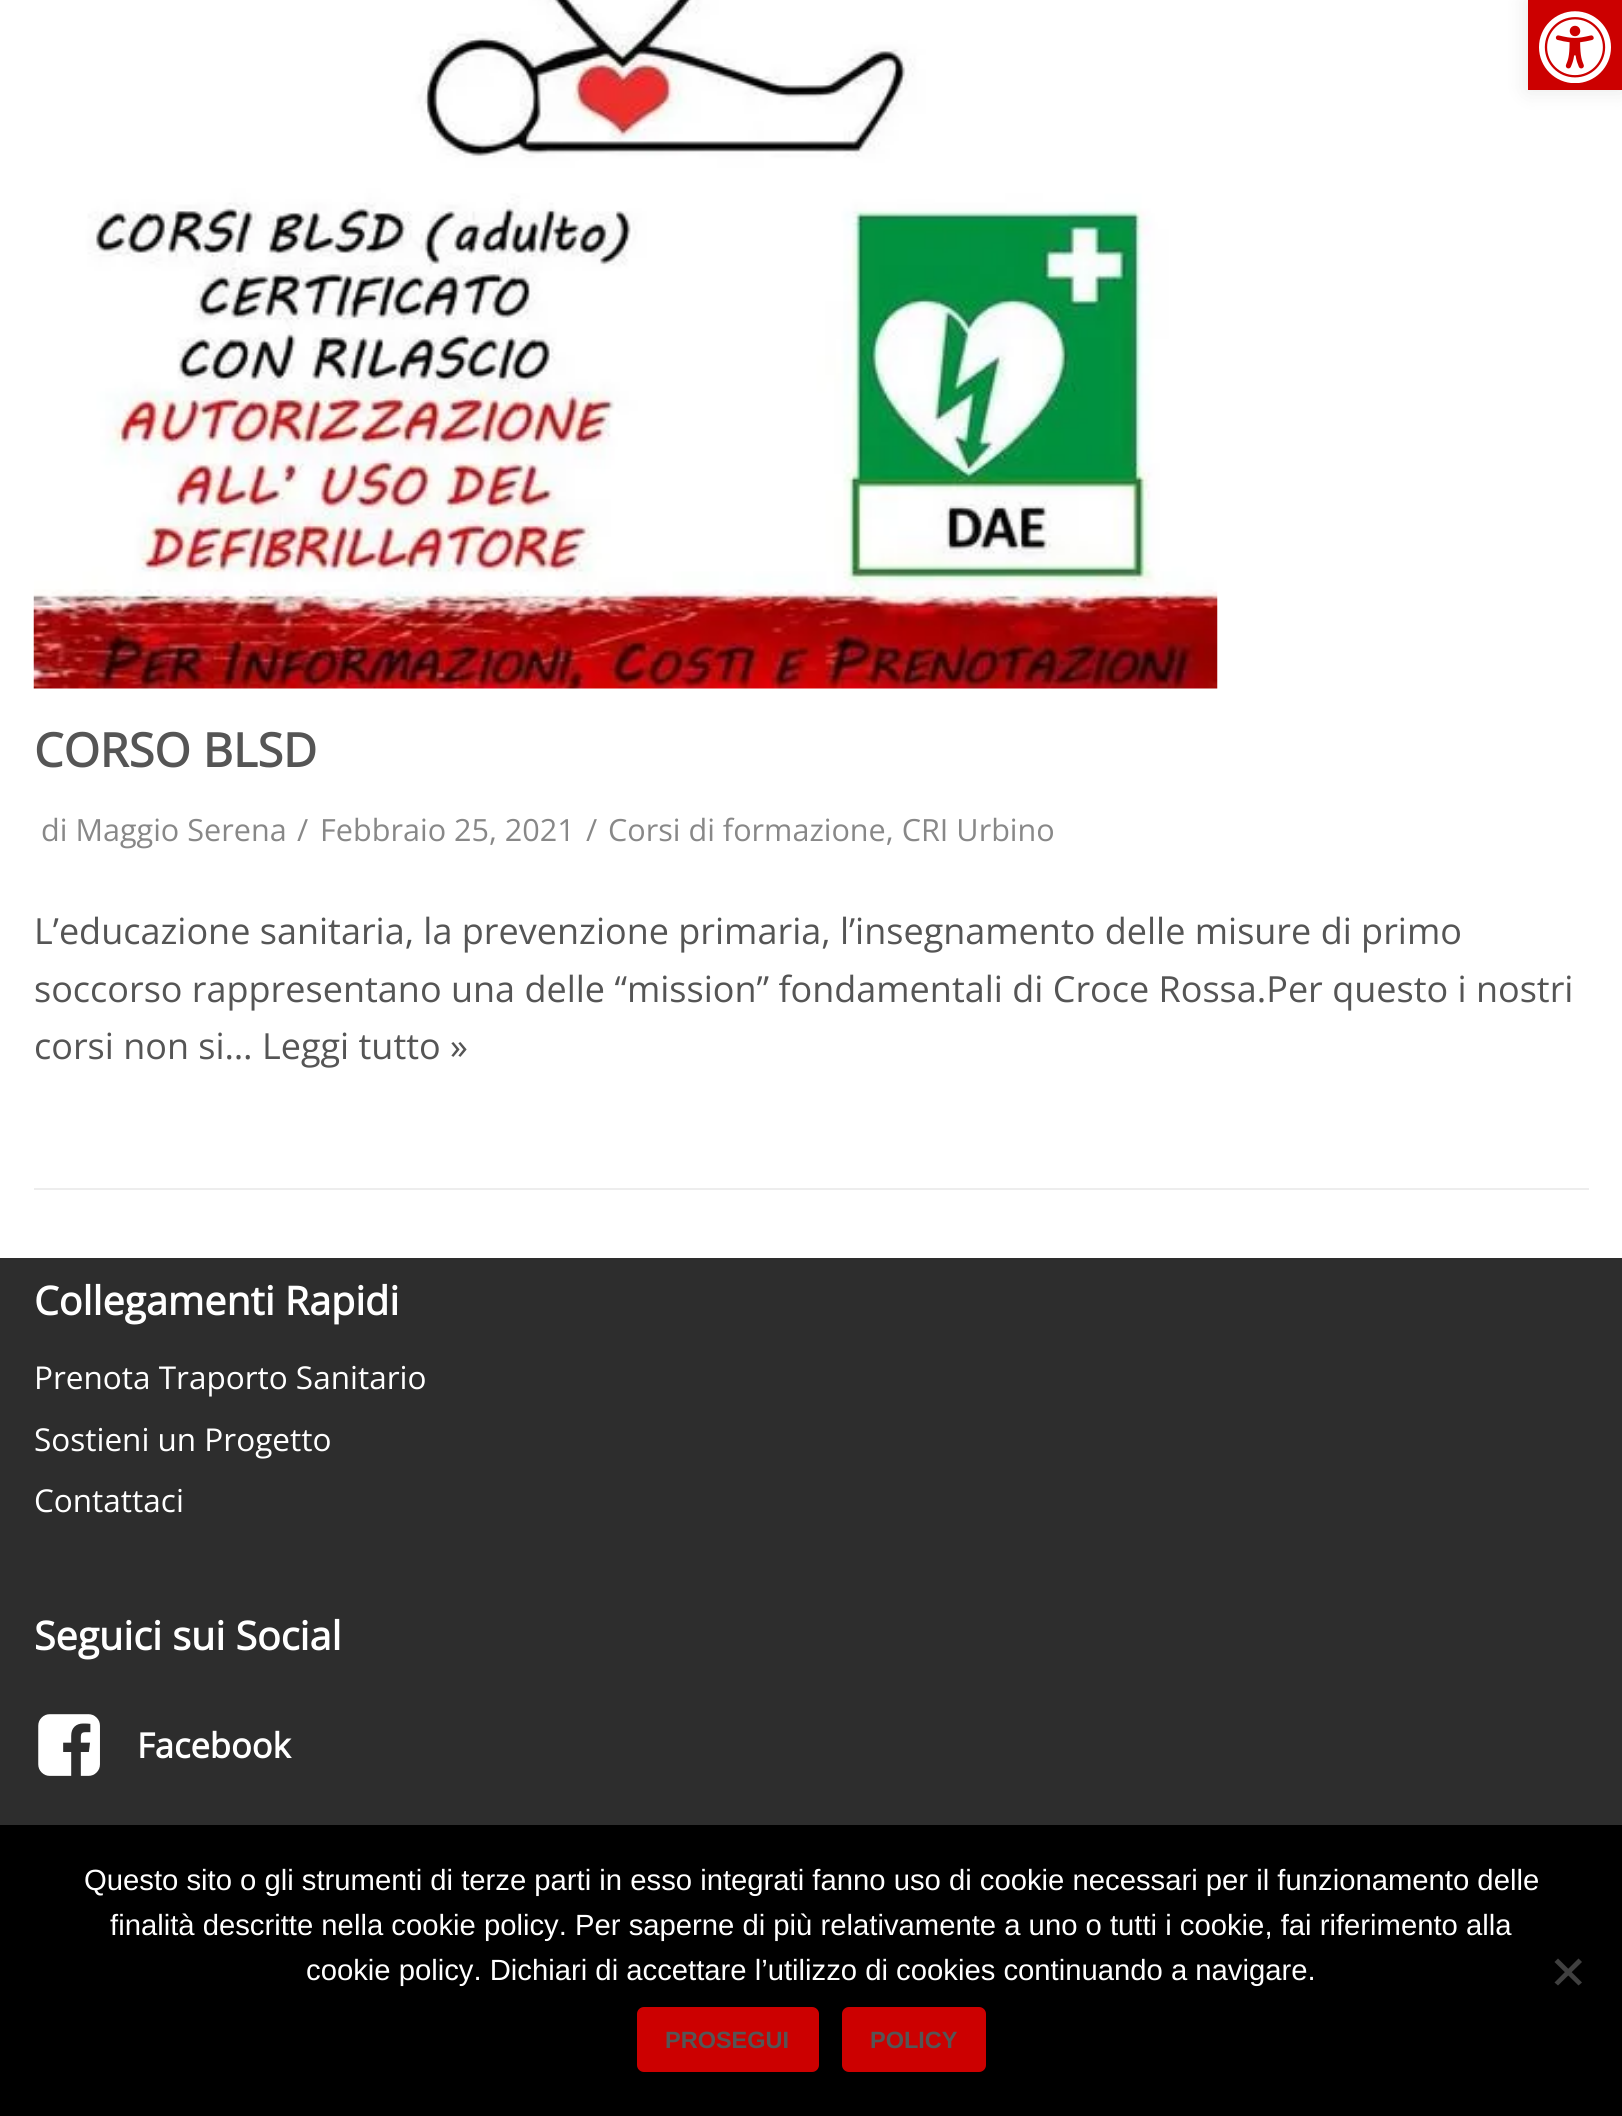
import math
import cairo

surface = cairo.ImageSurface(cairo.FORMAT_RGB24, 1622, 2116)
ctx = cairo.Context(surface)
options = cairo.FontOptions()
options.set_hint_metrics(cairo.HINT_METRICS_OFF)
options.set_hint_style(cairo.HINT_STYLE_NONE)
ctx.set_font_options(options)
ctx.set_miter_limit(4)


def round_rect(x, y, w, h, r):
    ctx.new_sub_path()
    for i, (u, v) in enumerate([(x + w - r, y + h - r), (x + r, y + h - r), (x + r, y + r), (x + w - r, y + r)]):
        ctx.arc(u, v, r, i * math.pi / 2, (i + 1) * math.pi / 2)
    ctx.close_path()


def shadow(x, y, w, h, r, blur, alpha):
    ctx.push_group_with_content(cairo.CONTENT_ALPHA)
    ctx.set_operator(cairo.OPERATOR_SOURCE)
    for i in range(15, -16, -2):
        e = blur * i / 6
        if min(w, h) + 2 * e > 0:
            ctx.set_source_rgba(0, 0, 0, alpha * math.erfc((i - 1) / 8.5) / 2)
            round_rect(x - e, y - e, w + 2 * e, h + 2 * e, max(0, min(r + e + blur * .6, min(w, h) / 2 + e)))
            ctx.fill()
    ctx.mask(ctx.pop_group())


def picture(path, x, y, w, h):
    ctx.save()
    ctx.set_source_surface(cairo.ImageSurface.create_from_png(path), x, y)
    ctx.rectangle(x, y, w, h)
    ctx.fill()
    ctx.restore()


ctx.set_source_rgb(1, 1, 1)
ctx.paint()
ctx.set_source_rgb(0, 0, 0)
shadow(1528, 0, 94, 90, 0, 11, 0.1)
ctx.set_source_rgb(0.8, 0, 0)
ctx.rectangle(1528, 0, 94, 90)
ctx.fill()
picture("img1.png", 1539, 11, 72, 72)
ctx.set_source_rgb(0.929, 0.929, 0.929)
ctx.rectangle(34, 1188, 1555, 2)
ctx.fill()
picture("img2.png", 33, 0, 1185, 689)
ctx.select_font_face("Open Sans", cairo.FONT_SLANT_NORMAL, cairo.FONT_WEIGHT_BOLD)
ctx.set_font_size(46.75)
ctx.set_source_rgb(0.333, 0.333, 0.333)
ctx.move_to(34, 767)
ctx.show_text("CORSO BLSD")
ctx.select_font_face("Open Sans")
ctx.set_font_size(30.6)
ctx.set_source_rgb(0.533, 0.533, 0.533)
ctx.move_to(41, 841)
ctx.show_text("di Maggio Serena")
ctx.move_to(297, 841)
ctx.show_text("/")
ctx.move_to(320, 841)
ctx.show_text("Febbraio 25, 2021")
ctx.move_to(586, 841)
ctx.show_text("/")
ctx.move_to(608, 841)
ctx.show_text("Corsi di formazione, CRI Urbino")
ctx.set_font_size(36)
ctx.set_source_rgb(0.333, 0.333, 0.333)
ctx.move_to(34, 944)
ctx.show_text("L’educazione sanitaria, la prevenzione primaria, l’insegnamento delle misure di primo")
ctx.move_to(34, 1002)
ctx.show_text("soccorso rappresentano una delle “mission” fondamentali di Croce Rossa.Per questo i nostri")
ctx.move_to(34, 1059)
ctx.show_text("corsi non si… Leggi tutto »")
ctx.set_source_rgb(0.176, 0.176, 0.176)
ctx.rectangle(0, 1258, 1622, 567)
ctx.fill()
ctx.select_font_face("Open Sans", cairo.FONT_SLANT_NORMAL, cairo.FONT_WEIGHT_BOLD)
ctx.set_font_size(39.4)
ctx.set_source_rgb(1, 1, 1)
ctx.move_to(34, 1315)
ctx.show_text("Collegamenti Rapidi")
ctx.select_font_face("Open Sans")
ctx.set_font_size(31.5)
ctx.move_to(34, 1389)
ctx.show_text("Prenota Traporto Sanitario")
ctx.move_to(34, 1451)
ctx.show_text("Sostieni un Progetto")
ctx.move_to(34, 1512)
ctx.show_text("Contattaci")
ctx.select_font_face("Open Sans", cairo.FONT_SLANT_NORMAL, cairo.FONT_WEIGHT_BOLD)
ctx.set_font_size(39.4)
ctx.move_to(34, 1650)
ctx.show_text("Seguici sui Social")
picture("img3.png", 38, 1714, 62, 62)
ctx.set_font_size(34.5)
ctx.move_to(137, 1758)
ctx.show_text("Facebook")
ctx.set_source_rgb(0, 0, 0)
ctx.rectangle(0, 1825, 1622, 291)
ctx.fill()
ctx.select_font_face("Liberation Sans")
ctx.set_font_size(29.25)
ctx.set_source_rgb(1, 1, 1)
ctx.move_to(84, 1890)
ctx.show_text("Questo sito o gli strumenti di terze parti in esso integrati fanno uso di cookie necessari per il funzionamento delle")
ctx.move_to(110, 1935)
ctx.show_text("finalità descritte nella cookie policy. Per saperne di più relativamente a uno o tutti i cookie, fai riferimento alla")
ctx.move_to(306, 1980)
ctx.show_text("cookie policy. Dichiari di accettare l’utilizzo di cookies continuando a navigare.")
ctx.set_source_rgb(0.251, 0.251, 0.251)
ctx.new_path()
ctx.move_to(1578.5, 1958.5)
ctx.line_to(1582, 1962)
ctx.line_to(1558, 1985.5)
ctx.line_to(1554.5, 1982.5)
ctx.close_path()
ctx.fill()
ctx.new_path()
ctx.move_to(1554.5, 1962)
ctx.line_to(1558, 1958.5)
ctx.line_to(1582, 1982.5)
ctx.line_to(1578.5, 1985.5)
ctx.close_path()
ctx.fill()
ctx.set_source_rgb(0.8, 0, 0)
round_rect(637, 2007, 182, 65, 7)
ctx.fill()
ctx.select_font_face("Liberation Sans", cairo.FONT_SLANT_NORMAL, cairo.FONT_WEIGHT_BOLD)
ctx.set_font_size(23.5)
ctx.set_source_rgb(0.333, 0.333, 0.333)
ctx.move_to(665, 2048)
ctx.show_text("PROSEGUI")
ctx.set_source_rgb(0.8, 0, 0)
round_rect(842, 2007, 144, 65, 7)
ctx.fill()
ctx.set_source_rgb(0.333, 0.333, 0.333)
ctx.move_to(870, 2048)
ctx.show_text("POLICY")
surface.write_to_png("page.png")
